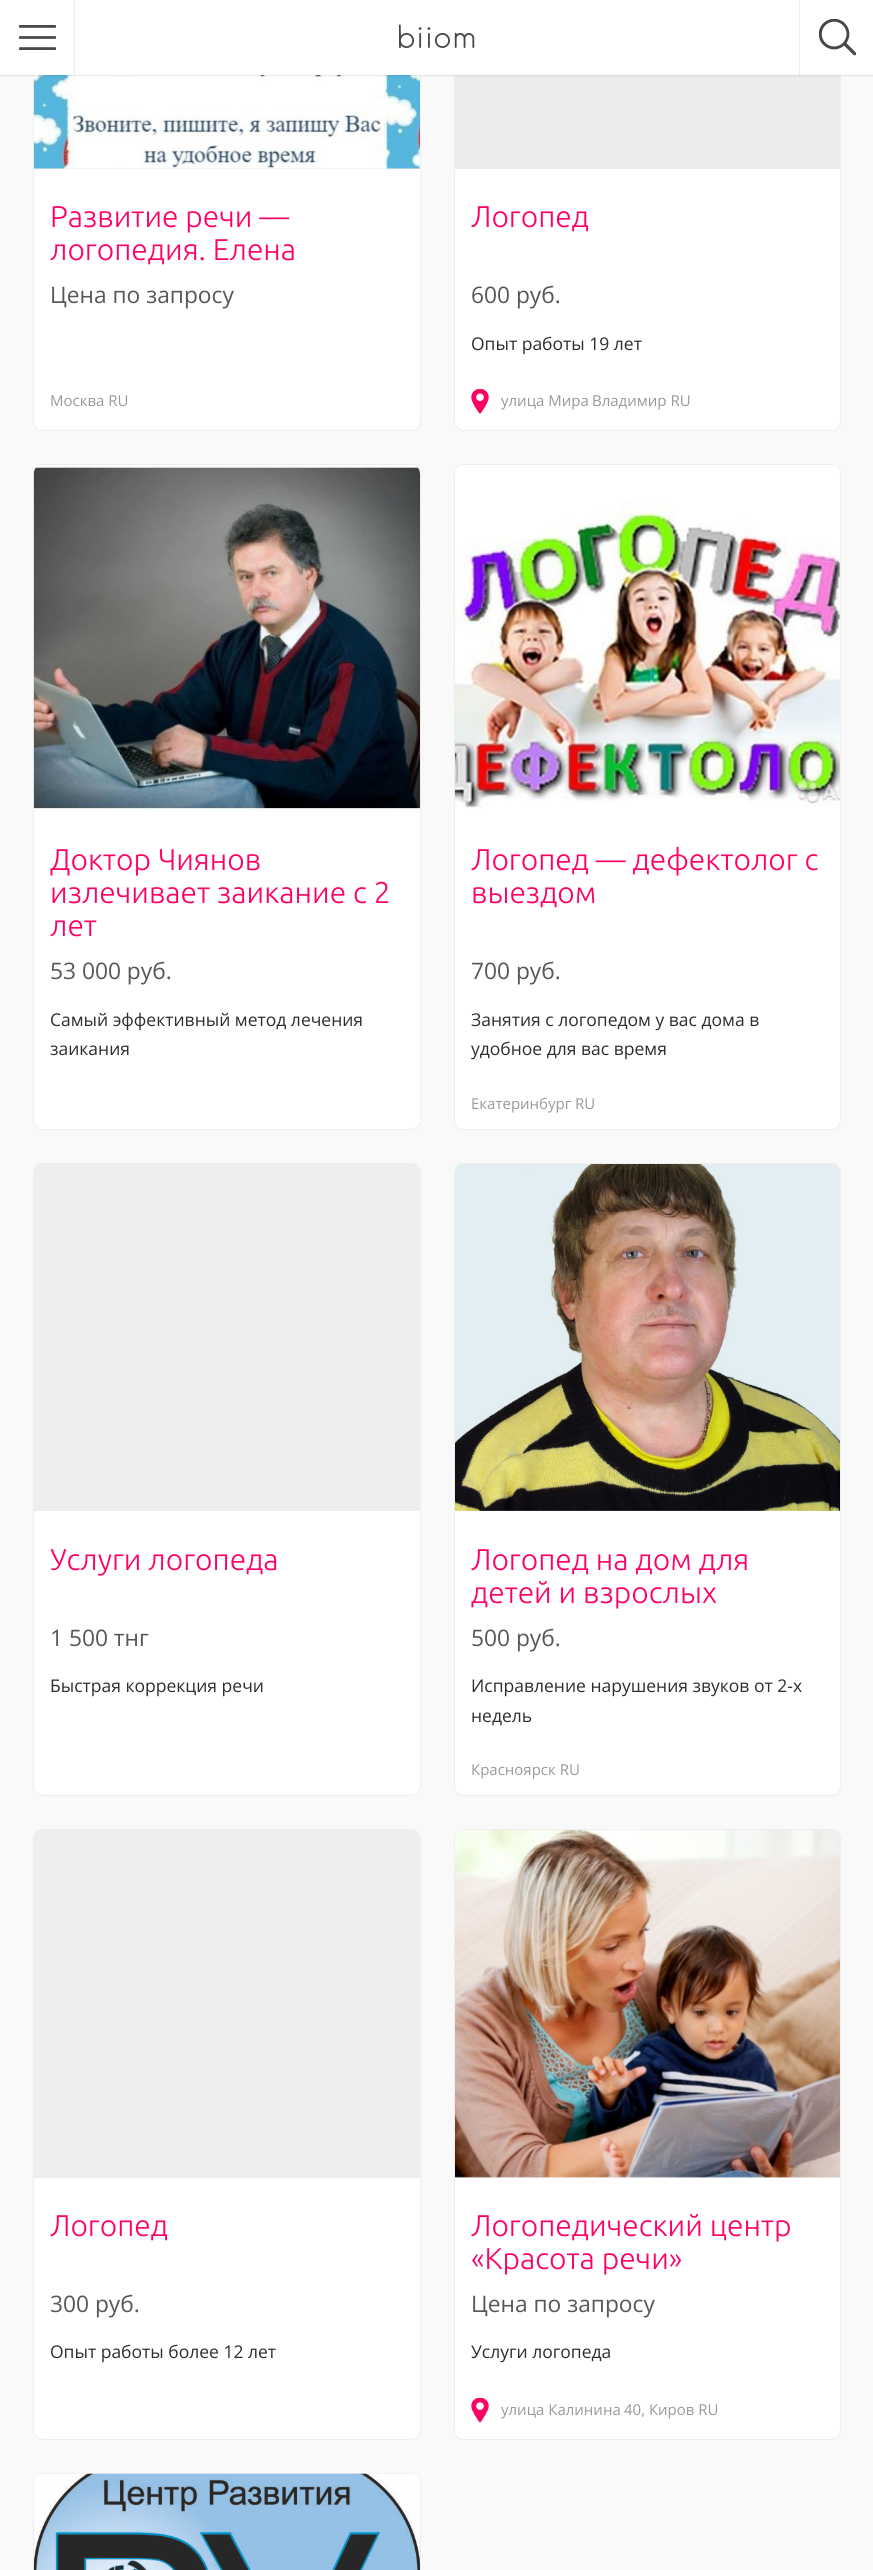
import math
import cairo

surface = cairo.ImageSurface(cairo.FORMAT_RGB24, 873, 2570)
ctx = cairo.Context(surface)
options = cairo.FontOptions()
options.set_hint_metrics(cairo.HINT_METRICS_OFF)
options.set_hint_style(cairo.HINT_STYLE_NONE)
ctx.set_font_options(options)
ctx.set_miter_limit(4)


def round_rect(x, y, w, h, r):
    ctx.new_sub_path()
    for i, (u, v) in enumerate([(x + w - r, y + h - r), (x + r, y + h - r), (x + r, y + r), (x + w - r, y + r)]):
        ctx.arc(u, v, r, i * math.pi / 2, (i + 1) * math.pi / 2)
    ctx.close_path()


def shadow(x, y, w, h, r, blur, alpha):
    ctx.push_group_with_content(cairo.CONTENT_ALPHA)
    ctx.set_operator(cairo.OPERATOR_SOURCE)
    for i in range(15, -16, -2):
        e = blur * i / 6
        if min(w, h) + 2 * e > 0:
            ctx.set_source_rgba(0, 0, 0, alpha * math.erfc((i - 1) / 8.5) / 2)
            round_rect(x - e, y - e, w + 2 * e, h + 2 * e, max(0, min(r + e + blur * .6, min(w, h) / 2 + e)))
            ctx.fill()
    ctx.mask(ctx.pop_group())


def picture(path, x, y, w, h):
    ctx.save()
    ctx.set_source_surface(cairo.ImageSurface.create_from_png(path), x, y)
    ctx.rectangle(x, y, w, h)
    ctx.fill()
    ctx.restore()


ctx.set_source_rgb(0.976, 0.976, 0.976)
ctx.paint()
ctx.set_source_rgb(1, 1, 1)
round_rect(33, -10, 388, 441, 10)
ctx.fill()
round_rect(33.5, -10.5, 387, 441, 9.5)
ctx.set_source_rgba(0, 0, 0, 0.07)
ctx.set_line_width(1)
ctx.stroke()
ctx.set_source_rgb(0.925, 0.925, 0.925)
ctx.rectangle(34, 168, 386, 1)
ctx.fill()
picture("img3.png", 33, 75, 387, 94)
ctx.set_source_rgb(1, 1, 1)
round_rect(454, -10, 387, 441, 10)
ctx.fill()
round_rect(454.5, -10.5, 386, 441, 9.5)
ctx.set_source_rgba(0, 0, 0, 0.07)
ctx.stroke()
ctx.set_source_rgb(0.925, 0.925, 0.925)
ctx.rectangle(455, 75, 385, 94)
ctx.fill()
ctx.set_source_rgb(0, 0, 0)
shadow(0, 0, 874, 75, 0, 1, 0.25)
ctx.set_source_rgb(1, 1, 1)
ctx.rectangle(0, 0, 873, 75)
ctx.fill()
ctx.set_source_rgb(0.925, 0.925, 0.925)
ctx.rectangle(74, 0, 1, 75)
ctx.fill()
picture("img1.png", 19, 25, 37, 25)
ctx.select_font_face("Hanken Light")
ctx.set_font_size(31)
ctx.set_source_rgb(0.282, 0.282, 0.282)
ctx.move_to(396, 48)
ctx.show_text("biiom")
ctx.set_source_rgb(0.925, 0.925, 0.925)
ctx.rectangle(799, 0, 1, 75)
ctx.fill()
picture("img2.png", 819, 19, 37, 37)
ctx.select_font_face("Ubuntu Light")
ctx.set_font_size(30)
ctx.set_source_rgb(1, 0, 0.4)
ctx.move_to(50, 227)
ctx.show_text("Развитие речи —")
ctx.move_to(50, 260)
ctx.show_text("логопедия. Елена")
ctx.select_font_face("Open Sans")
ctx.set_font_size(22.75)
ctx.set_source_rgb(0.341, 0.341, 0.341)
ctx.move_to(50, 303)
ctx.show_text("Цена по запросу")
ctx.set_font_size(15)
ctx.set_source_rgb(0.6, 0.6, 0.6)
ctx.move_to(50, 406)
ctx.show_text("Москва RU")
ctx.select_font_face("Ubuntu Light")
ctx.set_font_size(30)
ctx.set_source_rgb(1, 0, 0.4)
ctx.move_to(471, 227)
ctx.show_text("Логопед")
ctx.select_font_face("Open Sans")
ctx.set_font_size(22.75)
ctx.set_source_rgb(0.341, 0.341, 0.341)
ctx.move_to(471, 303)
ctx.show_text("600 руб.")
ctx.set_font_size(17.5)
ctx.set_source_rgb(0.176, 0.176, 0.176)
ctx.move_to(471, 350)
ctx.show_text("Опыт работы 19 лет")
picture("img4.png", 471, 389, 18, 25)
ctx.save()
ctx.rectangle(501, 391, 320, 19)
ctx.clip()
ctx.set_font_size(15)
ctx.set_source_rgb(0.6, 0.6, 0.6)
ctx.move_to(501, 406)
ctx.show_text("улица Мира")
ctx.restore()
ctx.set_font_size(15)
ctx.set_source_rgb(0.6, 0.6, 0.6)
ctx.move_to(592, 406)
ctx.show_text("Владимир RU")
ctx.set_source_rgb(1, 1, 1)
round_rect(33, 464, 388, 666, 10)
ctx.fill()
round_rect(33.5, 464.5, 387, 665, 9.5)
ctx.set_source_rgba(0, 0, 0, 0.07)
ctx.stroke()
picture("img5.png", 33, 465, 387, 346)
ctx.select_font_face("Ubuntu Light")
ctx.set_font_size(30)
ctx.set_source_rgb(1, 0, 0.4)
ctx.move_to(50, 870)
ctx.show_text("Доктор Чиянов")
ctx.move_to(50, 903)
ctx.show_text("излечивает заикание с 2")
ctx.move_to(50, 936)
ctx.show_text("лет")
ctx.select_font_face("Open Sans")
ctx.set_font_size(22.75)
ctx.set_source_rgb(0.341, 0.341, 0.341)
ctx.move_to(50, 979)
ctx.show_text("53 000 руб.")
ctx.set_font_size(17.5)
ctx.set_source_rgb(0.176, 0.176, 0.176)
ctx.move_to(50, 1026)
ctx.show_text("Самый эффективный метод лечения")
ctx.move_to(50, 1055)
ctx.show_text("заикания")
ctx.set_source_rgb(1, 1, 1)
round_rect(454, 464, 387, 666, 10)
ctx.fill()
round_rect(454.5, 464.5, 386, 665, 9.5)
ctx.set_source_rgba(0, 0, 0, 0.07)
ctx.stroke()
picture("img6.png", 455, 465, 385, 346)
ctx.select_font_face("Ubuntu Light")
ctx.set_font_size(30)
ctx.set_source_rgb(1, 0, 0.4)
ctx.move_to(471, 870)
ctx.show_text("Логопед — дефектолог с")
ctx.move_to(471, 903)
ctx.show_text("выездом")
ctx.select_font_face("Open Sans")
ctx.set_font_size(22.75)
ctx.set_source_rgb(0.341, 0.341, 0.341)
ctx.move_to(471, 979)
ctx.show_text("700 руб.")
ctx.set_font_size(17.5)
ctx.set_source_rgb(0.176, 0.176, 0.176)
ctx.move_to(471, 1026)
ctx.show_text("Занятия с логопедом у вас дома в")
ctx.move_to(471, 1055)
ctx.show_text("удобное для вас время")
ctx.set_font_size(15)
ctx.set_source_rgb(0.6, 0.6, 0.6)
ctx.move_to(471, 1109)
ctx.show_text("Екатеринбург RU")
ctx.set_source_rgb(1, 1, 1)
round_rect(33, 1163, 388, 633, 10)
ctx.fill()
round_rect(33.5, 1163.5, 387, 632, 9.5)
ctx.set_source_rgba(0, 0, 0, 0.07)
ctx.stroke()
ctx.new_path()
ctx.move_to(43, 1164)
ctx.line_to(411, 1164)
ctx.curve_to(416, 1164, 420, 1168, 420, 1173)
ctx.line_to(420, 1511)
ctx.line_to(34, 1511)
ctx.line_to(34, 1173)
ctx.curve_to(34, 1168, 38, 1164, 43, 1164)
ctx.close_path()
ctx.fill()
ctx.select_font_face("Ubuntu Light")
ctx.set_font_size(30)
ctx.set_source_rgb(1, 0, 0.4)
ctx.move_to(50, 1570)
ctx.show_text("Услуги логопеда")
ctx.select_font_face("Open Sans")
ctx.set_font_size(22.75)
ctx.set_source_rgb(0.341, 0.341, 0.341)
ctx.move_to(50, 1646)
ctx.show_text("1 500 тнг")
ctx.set_font_size(17.5)
ctx.set_source_rgb(0.176, 0.176, 0.176)
ctx.move_to(50, 1692)
ctx.show_text("Быстрая коррекция речи")
ctx.set_source_rgb(1, 1, 1)
round_rect(454, 1163, 387, 633, 10)
ctx.fill()
round_rect(454.5, 1163.5, 386, 632, 9.5)
ctx.set_source_rgba(0, 0, 0, 0.07)
ctx.stroke()
picture("img7.png", 455, 1164, 385, 347)
ctx.select_font_face("Ubuntu Light")
ctx.set_font_size(30)
ctx.set_source_rgb(1, 0, 0.4)
ctx.move_to(471, 1570)
ctx.show_text("Логопед на дом для")
ctx.move_to(471, 1603)
ctx.show_text("детей и взрослых")
ctx.select_font_face("Open Sans")
ctx.set_font_size(22.75)
ctx.set_source_rgb(0.341, 0.341, 0.341)
ctx.move_to(471, 1646)
ctx.show_text("500 руб.")
ctx.set_font_size(17.5)
ctx.set_source_rgb(0.176, 0.176, 0.176)
ctx.move_to(471, 1692)
ctx.show_text("Исправление нарушения звуков от 2-х")
ctx.move_to(471, 1722)
ctx.show_text("недель")
ctx.set_font_size(15)
ctx.set_source_rgb(0.6, 0.6, 0.6)
ctx.move_to(471, 1775)
ctx.show_text("Красноярск RU")
ctx.set_source_rgb(1, 1, 1)
round_rect(33, 1829, 388, 611, 10)
ctx.fill()
round_rect(33.5, 1829.5, 387, 610, 9.5)
ctx.set_source_rgba(0, 0, 0, 0.07)
ctx.stroke()
ctx.new_path()
ctx.move_to(43, 1830)
ctx.line_to(411, 1830)
ctx.curve_to(416, 1830, 420, 1834, 420, 1839)
ctx.line_to(420, 2178)
ctx.line_to(34, 2178)
ctx.line_to(34, 1839)
ctx.curve_to(34, 1834, 38, 1830, 43, 1830)
ctx.close_path()
ctx.fill()
ctx.select_font_face("Ubuntu Light")
ctx.set_font_size(30)
ctx.set_source_rgb(1, 0, 0.4)
ctx.move_to(50, 2236)
ctx.show_text("Логопед")
ctx.select_font_face("Open Sans")
ctx.set_font_size(22.75)
ctx.set_source_rgb(0.341, 0.341, 0.341)
ctx.move_to(50, 2312)
ctx.show_text("300 руб.")
ctx.set_font_size(17.5)
ctx.set_source_rgb(0.176, 0.176, 0.176)
ctx.move_to(50, 2358)
ctx.show_text("Опыт работы более 12 лет")
ctx.set_source_rgb(1, 1, 1)
round_rect(454, 1829, 387, 611, 10)
ctx.fill()
round_rect(454.5, 1829.5, 386, 610, 9.5)
ctx.set_source_rgba(0, 0, 0, 0.07)
ctx.stroke()
ctx.new_path()
ctx.move_to(464, 1830)
ctx.line_to(831, 1830)
ctx.curve_to(836, 1830, 840, 1834, 840, 1839)
ctx.line_to(840, 2178)
ctx.line_to(455, 2178)
ctx.line_to(455, 1839)
ctx.curve_to(455, 1834, 459, 1830, 464, 1830)
ctx.close_path()
ctx.fill()
picture("img8.png", 455, 1830, 385, 348)
ctx.select_font_face("Ubuntu Light")
ctx.set_font_size(30)
ctx.set_source_rgb(1, 0, 0.4)
ctx.move_to(471, 2236)
ctx.show_text("Логопедический центр")
ctx.move_to(471, 2269)
ctx.show_text("«Красота речи»")
ctx.select_font_face("Open Sans")
ctx.set_font_size(22.75)
ctx.set_source_rgb(0.341, 0.341, 0.341)
ctx.move_to(471, 2312)
ctx.show_text("Цена по запросу")
ctx.set_font_size(17.5)
ctx.set_source_rgb(0.176, 0.176, 0.176)
ctx.move_to(471, 2358)
ctx.show_text("Услуги логопеда")
picture("img9.png", 471, 2398, 18, 25)
ctx.save()
ctx.rectangle(501, 2400, 320, 19)
ctx.clip()
ctx.set_font_size(15)
ctx.set_source_rgb(0.6, 0.6, 0.6)
ctx.move_to(501, 2415)
ctx.show_text("улица Калинина")
ctx.restore()
ctx.set_font_size(15)
ctx.set_source_rgb(0.6, 0.6, 0.6)
ctx.move_to(624, 2415)
ctx.show_text("40, Киров RU")
ctx.set_source_rgb(1, 1, 1)
round_rect(33, 2473, 388, 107, 10)
ctx.fill()
round_rect(33.5, 2473.5, 387, 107, 9.5)
ctx.set_source_rgba(0, 0, 0, 0.07)
ctx.stroke()
picture("img10.png", 33, 2473, 387, 97)
surface.write_to_png("page.png")
